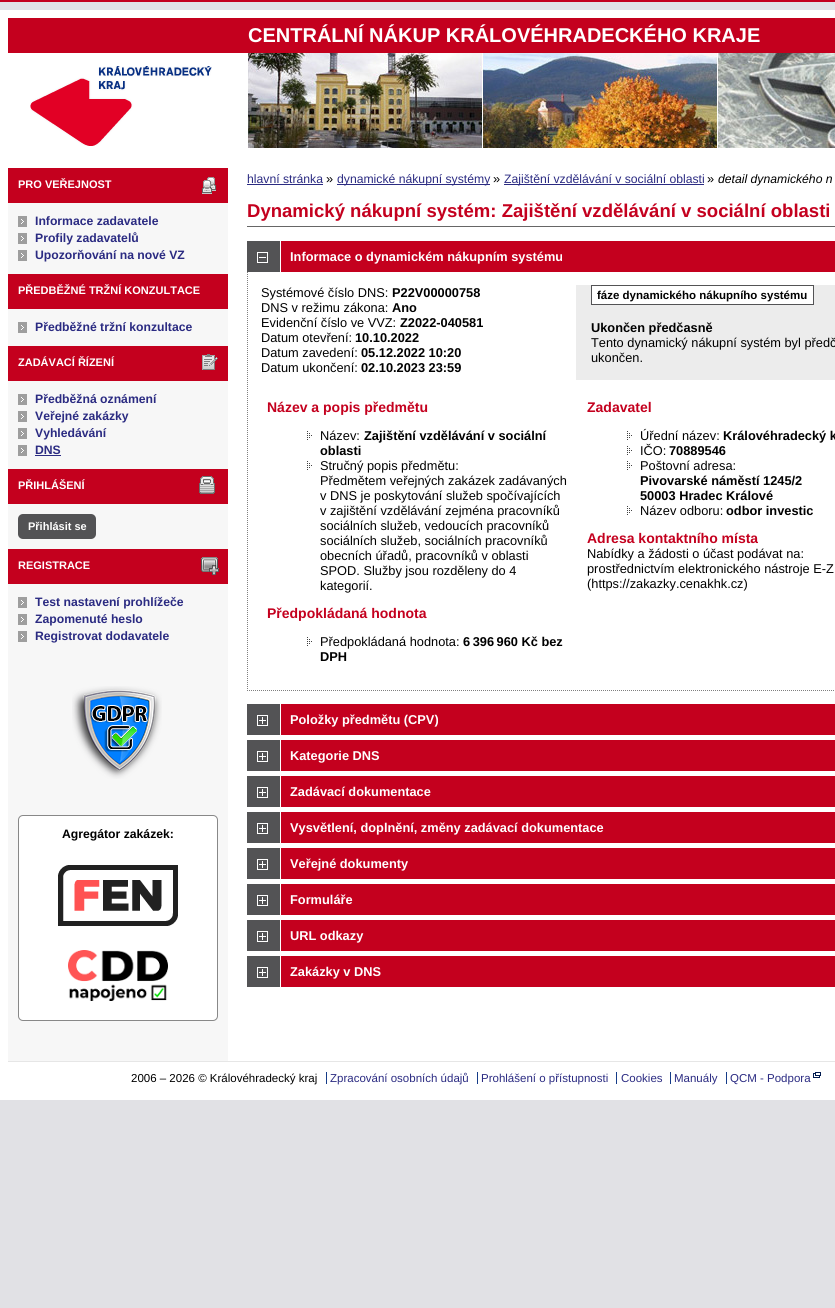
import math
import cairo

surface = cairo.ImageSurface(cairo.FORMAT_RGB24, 835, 1308)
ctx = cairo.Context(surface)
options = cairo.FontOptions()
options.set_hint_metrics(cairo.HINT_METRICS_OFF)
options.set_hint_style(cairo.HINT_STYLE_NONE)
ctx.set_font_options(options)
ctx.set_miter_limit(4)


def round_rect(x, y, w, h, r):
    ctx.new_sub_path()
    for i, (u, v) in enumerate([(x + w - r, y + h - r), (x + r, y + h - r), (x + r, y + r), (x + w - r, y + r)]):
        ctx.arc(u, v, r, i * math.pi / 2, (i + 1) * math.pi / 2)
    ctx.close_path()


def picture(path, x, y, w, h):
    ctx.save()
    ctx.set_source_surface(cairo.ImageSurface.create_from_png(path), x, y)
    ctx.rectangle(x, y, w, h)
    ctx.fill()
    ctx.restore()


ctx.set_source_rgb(0.882, 0.882, 0.898)
ctx.paint()
ctx.set_source_rgb(0.769, 0, 0.118)
ctx.rectangle(0, 0, 835, 2)
ctx.fill()
ctx.set_source_rgb(1, 1, 1)
ctx.rectangle(0, 10, 835, 1090)
ctx.fill()
picture("img1.png", 248, 53, 587, 95)
ctx.set_source_rgb(0.769, 0, 0.118)
ctx.rectangle(8, 18, 827, 35)
ctx.fill()
ctx.select_font_face("Liberation Sans", cairo.FONT_SLANT_NORMAL, cairo.FONT_WEIGHT_BOLD)
ctx.set_font_size(20)
ctx.set_source_rgb(1, 1, 1)
ctx.move_to(248, 42)
ctx.show_text("CENTRÁLNÍ NÁKUP KRÁLOVÉHRADECKÉHO KRAJE")
picture("img2.png", 30, 66, 182, 80)
ctx.set_source_rgb(0.965, 0.965, 0.965)
ctx.rectangle(8, 203, 220, 858)
ctx.fill()
ctx.set_source_rgb(0.769, 0, 0.118)
ctx.rectangle(8, 168, 220, 35)
ctx.fill()
picture("img3.png", 202, 177, 14, 17)
ctx.set_font_size(11)
ctx.set_source_rgb(1, 1, 1)
ctx.move_to(18, 188)
ctx.show_text("PRO VEŘEJNOST")
picture("img4.png", 18, 216, 9, 11)
ctx.set_font_size(12.2)
ctx.set_source_rgb(0.169, 0.169, 0.51)
ctx.move_to(35, 225)
ctx.show_text("Informace zadavatele")
picture("img4.png", 18, 233, 9, 11)
ctx.move_to(35, 242)
ctx.show_text("Profily zadavatelů")
picture("img4.png", 18, 250, 9, 11)
ctx.move_to(35, 259)
ctx.show_text("Upozorňování na nové VZ")
ctx.set_source_rgb(0.769, 0, 0.118)
ctx.rectangle(8, 274, 220, 35)
ctx.fill()
ctx.set_font_size(11)
ctx.set_source_rgb(1, 1, 1)
ctx.move_to(18, 294)
ctx.show_text("PŘEDBĚŽNÉ TRŽNÍ KONZULTACE")
picture("img4.png", 18, 322, 9, 11)
ctx.set_font_size(12.2)
ctx.set_source_rgb(0.169, 0.169, 0.51)
ctx.move_to(35, 331)
ctx.show_text("Předběžné tržní konzultace")
ctx.set_source_rgb(0.769, 0, 0.118)
ctx.rectangle(8, 346, 220, 35)
ctx.fill()
picture("img5.png", 202, 354, 16, 16)
ctx.set_font_size(11)
ctx.set_source_rgb(1, 1, 1)
ctx.move_to(18, 366)
ctx.show_text("ZADÁVACÍ ŘÍZENÍ")
picture("img4.png", 18, 394, 9, 11)
ctx.set_font_size(12.2)
ctx.set_source_rgb(0.169, 0.169, 0.51)
ctx.move_to(35, 403)
ctx.show_text("Předběžná oznámení")
picture("img4.png", 18, 411, 9, 11)
ctx.move_to(35, 420)
ctx.show_text("Veřejné zakázky")
picture("img4.png", 18, 428, 9, 11)
ctx.move_to(35, 437)
ctx.show_text("Vyhledávání")
picture("img4.png", 18, 445, 9, 11)
ctx.move_to(35, 454)
ctx.show_text("DNS")
ctx.rectangle(35, 455, 26, 1)
ctx.fill()
ctx.set_source_rgb(0.769, 0, 0.118)
ctx.rectangle(8, 469, 220, 35)
ctx.fill()
picture("img6.png", 199, 476, 16, 18)
ctx.set_font_size(11)
ctx.set_source_rgb(1, 1, 1)
ctx.move_to(18, 489)
ctx.show_text("PŘIHLÁŠENÍ")
ctx.set_source_rgb(0.325, 0.325, 0.333)
round_rect(18, 514, 78, 25, 5)
ctx.fill()
ctx.set_source_rgb(1, 1, 1)
ctx.move_to(28, 530)
ctx.show_text("Přihlásit se")
ctx.set_source_rgb(0.769, 0, 0.118)
ctx.rectangle(8, 549, 220, 35)
ctx.fill()
picture("img7.png", 201, 557, 18, 18)
ctx.set_source_rgb(1, 1, 1)
ctx.move_to(18, 569)
ctx.show_text("REGISTRACE")
picture("img4.png", 18, 597, 9, 11)
ctx.set_font_size(12.2)
ctx.set_source_rgb(0.169, 0.169, 0.51)
ctx.move_to(35, 606)
ctx.show_text("Test nastavení prohlížeče")
picture("img4.png", 18, 614, 9, 11)
ctx.move_to(35, 623)
ctx.show_text("Zapomenuté heslo")
picture("img4.png", 18, 631, 9, 11)
ctx.move_to(35, 640)
ctx.show_text("Registrovat dodavatele")
picture("img8.png", 72, 686, 90, 93)
ctx.set_source_rgb(1, 1, 1)
round_rect(18.5, 815.5, 199, 205, 4.5)
ctx.fill_preserve()
ctx.set_source_rgb(0.533, 0.533, 0.533)
ctx.set_line_width(1)
ctx.stroke()
ctx.set_source_rgb(0, 0, 0)
ctx.move_to(62, 838)
ctx.show_text("Agregátor zakázek:")
picture("img9.png", 58, 865, 120, 61)
picture("img10.png", 68, 950, 100, 51)
ctx.select_font_face("Liberation Sans")
ctx.set_source_rgb(0.169, 0.169, 0.51)
ctx.move_to(247, 183)
ctx.show_text("hlavní stránka")
ctx.rectangle(247, 184, 76, 1)
ctx.fill()
ctx.set_font_size(12.8)
ctx.set_source_rgb(0, 0, 0)
ctx.move_to(326, 183)
ctx.show_text("»")
ctx.set_source_rgb(0.169, 0.169, 0.51)
ctx.rectangle(337, 184, 153, 1)
ctx.fill()
ctx.set_font_size(12.2)
ctx.move_to(337, 183)
ctx.show_text("dynamické nákupní systémy")
ctx.set_font_size(12.8)
ctx.set_source_rgb(0, 0, 0)
ctx.move_to(493, 183)
ctx.show_text("»")
ctx.set_source_rgb(0.169, 0.169, 0.51)
ctx.rectangle(504, 184, 200, 1)
ctx.fill()
ctx.set_font_size(12.2)
ctx.move_to(504, 183)
ctx.show_text("Zajištění vzdělávání v sociální oblasti")
ctx.set_font_size(12.8)
ctx.set_source_rgb(0, 0, 0)
ctx.move_to(707, 183)
ctx.show_text("»")
ctx.select_font_face("Liberation Sans", cairo.FONT_SLANT_ITALIC)
ctx.set_font_size(12.2)
ctx.move_to(718, 183)
ctx.show_text("detail dynamického n")
ctx.set_source_rgb(0.4, 0.4, 0.4)
ctx.rectangle(247, 226, 588, 1)
ctx.fill()
ctx.select_font_face("Liberation Sans", cairo.FONT_SLANT_NORMAL, cairo.FONT_WEIGHT_BOLD)
ctx.set_font_size(18.55)
ctx.set_source_rgb(0.769, 0, 0.118)
ctx.move_to(247, 217)
ctx.show_text("Dynamický nákupní systém: Zajištění vzdělávání v sociální oblasti")
picture("img11.png", 247, 241, 588, 31)
picture("img12.png", 257, 252, 11, 11)
ctx.set_font_size(12.8)
ctx.set_source_rgb(1, 1, 1)
ctx.move_to(290, 261)
ctx.show_text("Informace o dynamickém nákupním systému")
ctx.new_path()
ctx.move_to(247, 690.5)
ctx.line_to(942, 690.5)
ctx.set_source_rgb(0.498, 0.498, 0.498)
ctx.set_dash([1, 1])
ctx.stroke()
ctx.new_path()
ctx.move_to(247.5, 272)
ctx.line_to(247.5, 691)
ctx.stroke()
ctx.select_font_face("Liberation Sans")
ctx.set_source_rgb(0, 0, 0)
ctx.move_to(261, 297)
ctx.show_text("Systémové číslo DNS:")
ctx.select_font_face("Liberation Sans", cairo.FONT_SLANT_NORMAL, cairo.FONT_WEIGHT_BOLD)
ctx.move_to(392, 297)
ctx.show_text("P22V00000758")
ctx.select_font_face("Liberation Sans")
ctx.move_to(261, 312)
ctx.show_text("DNS v režimu zákona:")
ctx.select_font_face("Liberation Sans", cairo.FONT_SLANT_NORMAL, cairo.FONT_WEIGHT_BOLD)
ctx.move_to(392, 312)
ctx.show_text("Ano")
ctx.select_font_face("Liberation Sans")
ctx.move_to(261, 327)
ctx.show_text("Evidenční číslo ve VVZ:")
ctx.select_font_face("Liberation Sans", cairo.FONT_SLANT_NORMAL, cairo.FONT_WEIGHT_BOLD)
ctx.move_to(400, 327)
ctx.show_text("Z2022-040581")
ctx.select_font_face("Liberation Sans")
ctx.move_to(261, 342)
ctx.show_text("Datum otevření:")
ctx.select_font_face("Liberation Sans", cairo.FONT_SLANT_NORMAL, cairo.FONT_WEIGHT_BOLD)
ctx.move_to(355, 342)
ctx.show_text("10.10.2022")
ctx.select_font_face("Liberation Sans")
ctx.move_to(261, 357)
ctx.show_text("Datum zavedení:")
ctx.select_font_face("Liberation Sans", cairo.FONT_SLANT_NORMAL, cairo.FONT_WEIGHT_BOLD)
ctx.move_to(361, 357)
ctx.show_text("05.12.2022 10:20")
ctx.select_font_face("Liberation Sans")
ctx.move_to(261, 372)
ctx.show_text("Datum ukončení:")
ctx.select_font_face("Liberation Sans", cairo.FONT_SLANT_NORMAL, cairo.FONT_WEIGHT_BOLD)
ctx.move_to(361, 372)
ctx.show_text("02.10.2023 23:59")
ctx.set_source_rgb(0.925, 0.925, 0.925)
ctx.rectangle(576, 285, 259, 95)
ctx.fill()
ctx.set_source_rgb(1, 1, 1)
ctx.rectangle(591.5, 285.5, 222, 19)
ctx.fill_preserve()
ctx.set_source_rgb(0.325, 0.325, 0.333)
ctx.set_dash([])
ctx.stroke()
ctx.set_font_size(11.5)
ctx.set_source_rgb(0, 0, 0)
ctx.move_to(597, 299)
ctx.show_text("fáze dynamického nákupního systému")
ctx.set_font_size(12.8)
ctx.move_to(591, 332)
ctx.show_text("Ukončen předčasně")
ctx.select_font_face("Liberation Sans")
ctx.move_to(591, 347)
ctx.show_text("Tento dynamický nákupní systém byl předč")
ctx.move_to(591, 362)
ctx.show_text("ukončen.")
ctx.select_font_face("Liberation Sans", cairo.FONT_SLANT_NORMAL, cairo.FONT_WEIGHT_BOLD)
ctx.set_font_size(14)
ctx.set_source_rgb(0.769, 0, 0.118)
ctx.move_to(267, 412)
ctx.show_text("Název a popis předmětu")
picture("img13.png", 307, 431, 5, 9)
ctx.select_font_face("Liberation Sans")
ctx.set_font_size(12.8)
ctx.set_source_rgb(0, 0, 0)
ctx.move_to(320, 440)
ctx.show_text("Název:")
ctx.select_font_face("Liberation Sans", cairo.FONT_SLANT_NORMAL, cairo.FONT_WEIGHT_BOLD)
ctx.move_to(364, 440)
ctx.show_text("Zajištění vzdělávání v sociální")
ctx.move_to(320, 455)
ctx.show_text("oblasti")
picture("img13.png", 307, 461, 5, 9)
ctx.select_font_face("Liberation Sans")
ctx.move_to(320, 470)
ctx.show_text("Stručný popis předmětu:")
ctx.move_to(320, 485)
ctx.show_text("Předmětem veřejných zakázek zadávaných")
ctx.move_to(320, 500)
ctx.show_text("v DNS je poskytování služeb spočívajících")
ctx.move_to(320, 515)
ctx.show_text("v zajištění vzdělávání zejména pracovníků")
ctx.move_to(320, 530)
ctx.show_text("sociálních služeb, vedoucích pracovníků")
ctx.move_to(320, 545)
ctx.show_text("sociálních služeb, sociálních pracovníků")
ctx.move_to(320, 560)
ctx.show_text("obecních úřadů, pracovníků v oblasti")
ctx.move_to(320, 575)
ctx.show_text("SPOD. Služby jsou rozděleny do 4")
ctx.move_to(320, 590)
ctx.show_text("kategorií.")
ctx.select_font_face("Liberation Sans", cairo.FONT_SLANT_NORMAL, cairo.FONT_WEIGHT_BOLD)
ctx.set_font_size(14)
ctx.set_source_rgb(0.769, 0, 0.118)
ctx.move_to(267, 618)
ctx.show_text("Předpokládaná hodnota")
picture("img13.png", 307, 637, 5, 9)
ctx.select_font_face("Liberation Sans")
ctx.set_font_size(12.8)
ctx.set_source_rgb(0, 0, 0)
ctx.move_to(320, 646)
ctx.show_text("Předpokládaná hodnota:")
ctx.select_font_face("Liberation Sans", cairo.FONT_SLANT_NORMAL, cairo.FONT_WEIGHT_BOLD)
ctx.move_to(463, 646)
ctx.show_text("6 396 960 Kč bez")
ctx.move_to(320, 661)
ctx.show_text("DPH")
ctx.set_font_size(14)
ctx.set_source_rgb(0.769, 0, 0.118)
ctx.move_to(587, 412)
ctx.show_text("Zadavatel")
picture("img13.png", 627, 431, 5, 9)
ctx.select_font_face("Liberation Sans")
ctx.set_font_size(12.8)
ctx.set_source_rgb(0, 0, 0)
ctx.move_to(640, 440)
ctx.show_text("Úřední název:")
ctx.select_font_face("Liberation Sans", cairo.FONT_SLANT_NORMAL, cairo.FONT_WEIGHT_BOLD)
ctx.move_to(723, 440)
ctx.show_text("Královéhradecký k")
picture("img13.png", 627, 446, 5, 9)
ctx.select_font_face("Liberation Sans")
ctx.move_to(640, 455)
ctx.show_text("IČO:")
ctx.select_font_face("Liberation Sans", cairo.FONT_SLANT_NORMAL, cairo.FONT_WEIGHT_BOLD)
ctx.move_to(669, 455)
ctx.show_text("70889546")
picture("img13.png", 627, 461, 5, 9)
ctx.select_font_face("Liberation Sans")
ctx.move_to(640, 470)
ctx.show_text("Poštovní adresa:")
ctx.select_font_face("Liberation Sans", cairo.FONT_SLANT_NORMAL, cairo.FONT_WEIGHT_BOLD)
ctx.move_to(640, 485)
ctx.show_text("Pivovarské náměstí 1245/2")
ctx.move_to(640, 500)
ctx.show_text("50003 Hradec Králové")
picture("img13.png", 627, 506, 5, 9)
ctx.select_font_face("Liberation Sans")
ctx.move_to(640, 515)
ctx.show_text("Název odboru:")
ctx.select_font_face("Liberation Sans", cairo.FONT_SLANT_NORMAL, cairo.FONT_WEIGHT_BOLD)
ctx.move_to(726, 515)
ctx.show_text("odbor investic")
ctx.set_font_size(14)
ctx.set_source_rgb(0.769, 0, 0.118)
ctx.move_to(587, 543)
ctx.show_text("Adresa kontaktního místa")
ctx.select_font_face("Liberation Sans")
ctx.set_font_size(12.8)
ctx.set_source_rgb(0, 0, 0)
ctx.move_to(587, 558)
ctx.show_text("Nabídky a žádosti o účast podávat na:")
ctx.move_to(587, 573)
ctx.show_text("prostřednictvím elektronického nástroje E-Z")
ctx.move_to(587, 588)
ctx.show_text("(https://zakazky.cenakhk.cz)")
picture("img11.png", 247, 704, 588, 31)
picture("img14.png", 257, 715, 11, 11)
ctx.select_font_face("Liberation Sans", cairo.FONT_SLANT_NORMAL, cairo.FONT_WEIGHT_BOLD)
ctx.set_source_rgb(1, 1, 1)
ctx.move_to(290, 724)
ctx.show_text("Položky předmětu (CPV)")
picture("img11.png", 247, 740, 588, 31)
picture("img14.png", 257, 751, 11, 11)
ctx.move_to(290, 760)
ctx.show_text("Kategorie DNS")
picture("img11.png", 247, 776, 588, 31)
picture("img14.png", 257, 787, 11, 11)
ctx.move_to(290, 796)
ctx.show_text("Zadávací dokumentace")
picture("img11.png", 247, 812, 588, 31)
picture("img14.png", 257, 823, 11, 11)
ctx.move_to(290, 832)
ctx.show_text("Vysvětlení, doplnění, změny zadávací dokumentace")
picture("img11.png", 247, 848, 588, 31)
picture("img14.png", 257, 859, 11, 11)
ctx.move_to(290, 868)
ctx.show_text("Veřejné dokumenty")
picture("img11.png", 247, 884, 588, 31)
picture("img14.png", 257, 895, 11, 11)
ctx.move_to(290, 904)
ctx.show_text("Formuláře")
picture("img11.png", 247, 920, 588, 31)
picture("img14.png", 257, 931, 11, 11)
ctx.move_to(290, 940)
ctx.show_text("URL odkazy")
picture("img11.png", 247, 956, 588, 31)
picture("img14.png", 257, 967, 11, 11)
ctx.move_to(290, 976)
ctx.show_text("Zakázky v DNS")
ctx.set_source_rgb(0.902, 0.902, 0.902)
ctx.rectangle(8, 1061, 827, 1)
ctx.fill()
ctx.select_font_face("Liberation Sans")
ctx.set_font_size(11.5)
ctx.set_source_rgb(0, 0, 0)
ctx.move_to(131, 1082)
ctx.show_text("2006 – 2026 © Královéhradecký kraj")
ctx.set_source_rgb(0.082, 0.231, 0.533)
ctx.rectangle(326, 1072, 1, 12)
ctx.fill()
ctx.set_source_rgb(0.169, 0.169, 0.51)
ctx.move_to(330, 1082)
ctx.show_text("Zpracování osobních údajů")
ctx.set_source_rgb(0.082, 0.231, 0.533)
ctx.rectangle(477, 1072, 1, 12)
ctx.fill()
ctx.set_source_rgb(0.169, 0.169, 0.51)
ctx.move_to(481, 1082)
ctx.show_text("Prohlášení o přístupnosti")
ctx.set_source_rgb(0.082, 0.231, 0.533)
ctx.rectangle(616, 1072, 1, 12)
ctx.fill()
ctx.set_source_rgb(0.169, 0.169, 0.51)
ctx.move_to(621, 1082)
ctx.show_text("Cookies")
ctx.set_source_rgb(0.082, 0.231, 0.533)
ctx.rectangle(670, 1072, 1, 12)
ctx.fill()
ctx.set_source_rgb(0.169, 0.169, 0.51)
ctx.move_to(674, 1082)
ctx.show_text("Manuály")
ctx.set_source_rgb(0.082, 0.231, 0.533)
ctx.rectangle(726, 1072, 1, 12)
ctx.fill()
ctx.set_source_rgb(0.169, 0.169, 0.51)
ctx.move_to(730, 1082)
ctx.show_text("QCM - Podpora")
picture("img15.png", 813, 1072, 8, 6)
surface.write_to_png("page.png")
